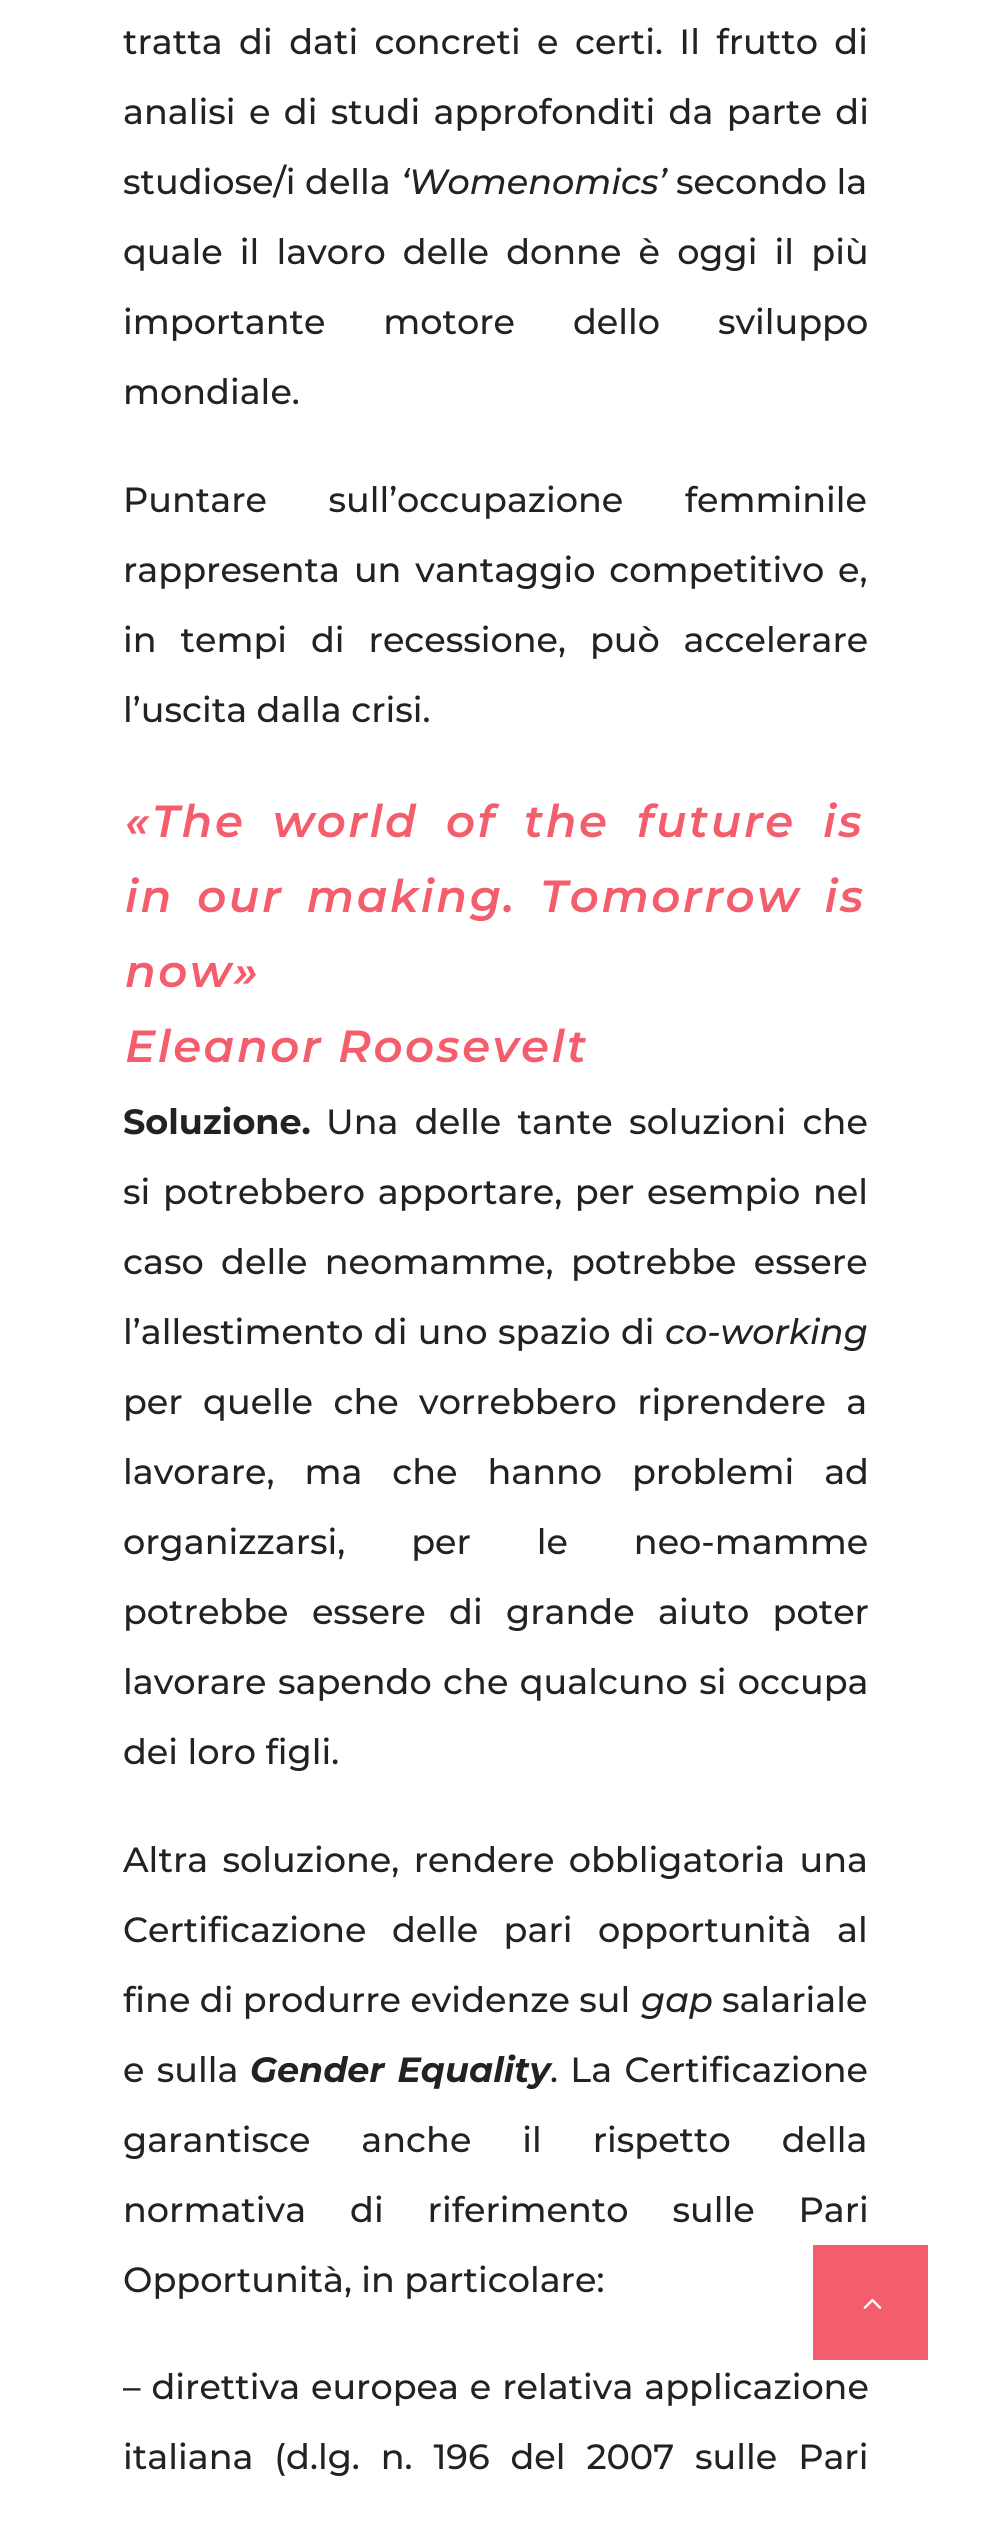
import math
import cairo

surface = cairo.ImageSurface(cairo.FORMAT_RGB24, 990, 2521)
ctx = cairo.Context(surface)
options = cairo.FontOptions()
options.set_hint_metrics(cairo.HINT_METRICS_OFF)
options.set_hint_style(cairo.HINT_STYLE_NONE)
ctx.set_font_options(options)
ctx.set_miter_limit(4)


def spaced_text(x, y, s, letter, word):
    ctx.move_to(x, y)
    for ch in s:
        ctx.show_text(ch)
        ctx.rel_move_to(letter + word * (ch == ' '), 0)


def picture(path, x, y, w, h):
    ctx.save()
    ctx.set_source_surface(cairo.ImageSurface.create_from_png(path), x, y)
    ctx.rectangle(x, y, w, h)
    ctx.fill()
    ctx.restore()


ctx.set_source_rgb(1, 1, 1)
ctx.paint()
ctx.select_font_face("Montserrat Medium")
ctx.set_font_size(35)
ctx.set_source_rgb(0.133, 0.133, 0.133)
spaced_text(123, 54, "tratta di dati concreti e certi. Il frutto di", 0, 7)
spaced_text(123, 124, "analisi e di studi approfonditi da parte di", 0, 4)
ctx.move_to(123, 194)
ctx.show_text("studiose/i della")
ctx.select_font_face("Montserrat Medium", cairo.FONT_SLANT_ITALIC)
ctx.move_to(401, 194)
ctx.show_text("‘Womenomics’")
ctx.select_font_face("Montserrat Medium")
ctx.move_to(676, 194)
ctx.show_text("secondo la")
spaced_text(123, 264, "quale il lavoro delle donne è oggi il più", 0, 7.75)
spaced_text(123, 334, "importante motore dello sviluppo", 0, 48.5)
ctx.move_to(123, 404)
ctx.show_text("mondiale.")
spaced_text(123, 512, "Puntare sull’occupazione femminile", 0, 52)
spaced_text(123, 582, "rappresenta un vantaggio competitivo e,", 0, 4.5)
spaced_text(123, 652, "in tempi di recessione, può accelerare", 0, 14.5)
ctx.move_to(123, 722)
ctx.show_text("l’uscita dalla crisi.")
ctx.select_font_face("Montserrat SemiBold", cairo.FONT_SLANT_ITALIC)
ctx.set_font_size(45)
ctx.set_source_rgb(0.957, 0.369, 0.424)
spaced_text(125, 837, "«", 2.5, 0)
spaced_text(152, 837, "The world of the future is", 2.5, 12.5)
spaced_text(125, 912, "in our making. Tomorrow is", 2.5, 8.5)
spaced_text(125, 987, "now»", 2.5, 0)
spaced_text(125, 1062, "Eleanor Roosevelt", 2.5, 0)
ctx.select_font_face("Montserrat", cairo.FONT_SLANT_NORMAL, cairo.FONT_WEIGHT_BOLD)
ctx.set_font_size(35)
ctx.set_source_rgb(0.133, 0.133, 0.133)
ctx.move_to(123, 1134)
ctx.show_text("Soluzione.")
ctx.select_font_face("Montserrat Medium")
spaced_text(326, 1134, "Una delle tante soluzioni che", 0, 7)
spaced_text(123, 1204, "si potrebbero apportare, per esempio nel", 0, 3.25)
spaced_text(123, 1274, "caso delle neomamme, potrebbe essere", 0, 8)
spaced_text(123, 1344, "l’allestimento di uno spazio di", 0, 1)
ctx.select_font_face("Montserrat Medium", cairo.FONT_SLANT_ITALIC)
ctx.move_to(665, 1344)
ctx.show_text("co-working")
ctx.select_font_face("Montserrat Medium")
spaced_text(123, 1414, "per quelle che vorrebbero riprendere a", 0, 11)
spaced_text(123, 1484, "lavorare, ma che hanno problemi ad", 0, 20.5)
spaced_text(123, 1554, "organizzarsi, per le neo-mamme", 0, 56.5)
spaced_text(123, 1624, "potrebbe essere di grande aiuto poter", 0, 14)
spaced_text(123, 1694, "lavorare sapendo che qualcuno si occupa", 0, 2)
ctx.move_to(123, 1764)
ctx.show_text("dei loro figli.")
spaced_text(123, 1872, "Altra soluzione, rendere obbligatoria una", 0, 5)
spaced_text(123, 1942, "Certificazione delle pari opportunità al", 0, 16)
ctx.move_to(123, 2012)
ctx.show_text("fine di produrre evidenze sul")
ctx.select_font_face("Montserrat Medium", cairo.FONT_SLANT_ITALIC)
ctx.move_to(641, 2012)
ctx.show_text("gap")
ctx.select_font_face("Montserrat Medium")
ctx.move_to(722, 2012)
ctx.show_text("salariale")
spaced_text(123, 2082, "e sulla", 0, 3)
ctx.select_font_face("Montserrat", cairo.FONT_SLANT_ITALIC, cairo.FONT_WEIGHT_BOLD)
spaced_text(250, 2082, "Gender Equality", 0, 3)
ctx.select_font_face("Montserrat Medium")
spaced_text(550, 2082, ". La Certificazione", 0, 3)
spaced_text(123, 2152, "garantisce anche il rispetto della", 0, 41.5)
spaced_text(123, 2222, "normativa di riferimento sulle Pari", 0, 34.5)
ctx.move_to(123, 2292)
ctx.show_text("Opportunità, in particolare:")
spaced_text(123, 2399, "– direttiva europea e relativa applicazione", 0, 1.5)
spaced_text(123, 2469, "italiana (d.lg. n. 196 del 2007 sulle Pari", 0, 11.5)
ctx.set_source_rgb(0.957, 0.369, 0.424)
ctx.rectangle(813, 2245, 115, 115)
ctx.fill()
picture("img1.png", 863, 2298, 19, 11)
surface.write_to_png("page.png")
